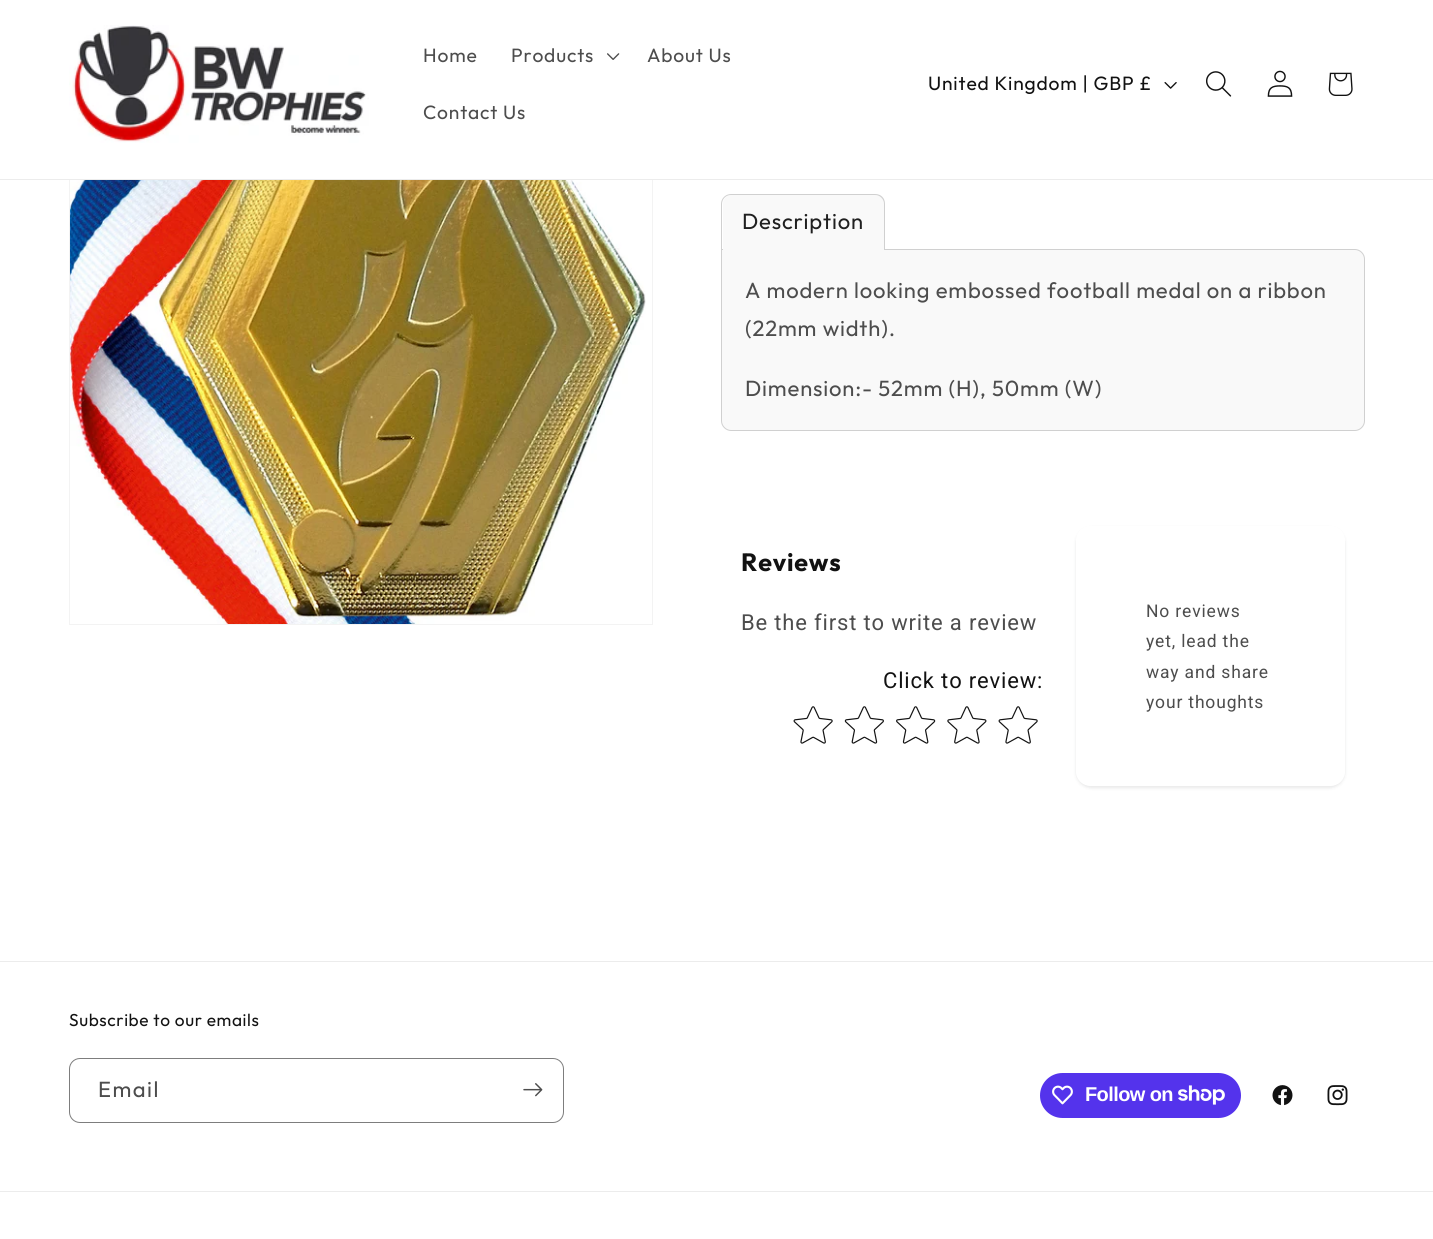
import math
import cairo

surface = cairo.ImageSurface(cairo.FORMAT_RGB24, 1433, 1239)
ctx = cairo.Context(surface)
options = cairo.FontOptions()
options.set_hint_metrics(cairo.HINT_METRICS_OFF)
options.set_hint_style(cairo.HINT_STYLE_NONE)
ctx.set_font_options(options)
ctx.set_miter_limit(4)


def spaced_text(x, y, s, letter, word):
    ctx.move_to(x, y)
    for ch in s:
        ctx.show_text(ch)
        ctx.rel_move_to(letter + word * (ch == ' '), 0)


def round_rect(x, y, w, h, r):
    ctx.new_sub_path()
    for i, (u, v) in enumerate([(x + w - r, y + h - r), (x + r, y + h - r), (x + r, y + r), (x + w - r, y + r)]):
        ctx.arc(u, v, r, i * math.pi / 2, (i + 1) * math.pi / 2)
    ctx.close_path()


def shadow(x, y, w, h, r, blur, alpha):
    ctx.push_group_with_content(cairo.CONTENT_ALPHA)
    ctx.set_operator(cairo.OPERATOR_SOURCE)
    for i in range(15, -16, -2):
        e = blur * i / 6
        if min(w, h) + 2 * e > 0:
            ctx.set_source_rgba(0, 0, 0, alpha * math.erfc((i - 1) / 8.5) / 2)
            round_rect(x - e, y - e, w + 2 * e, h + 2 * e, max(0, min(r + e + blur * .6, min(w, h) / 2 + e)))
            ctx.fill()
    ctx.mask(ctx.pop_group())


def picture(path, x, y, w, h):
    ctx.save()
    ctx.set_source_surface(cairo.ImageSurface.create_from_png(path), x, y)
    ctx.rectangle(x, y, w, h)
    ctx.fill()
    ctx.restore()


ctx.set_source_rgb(1, 1, 1)
ctx.paint()
ctx.rectangle(69.5, 41.5, 583, 583)
ctx.set_source_rgb(0.953, 0.953, 0.953)
ctx.set_line_width(1)
ctx.stroke()
ctx.set_source_rgb(1, 1, 1)
ctx.rectangle(69, 41, 584, 138)
ctx.fill()
ctx.set_source_rgb(0.925, 0.925, 0.925)
ctx.rectangle(0, 179, 1433, 1)
ctx.fill()
picture("img1.png", 69, 25, 300, 118)
ctx.select_font_face("Outfit")
ctx.set_font_size(19.25)
ctx.set_source_rgb(0.302, 0.302, 0.302)
spaced_text(423, 62, "Home", 0.83, 0)
spaced_text(511, 62, "Products", 0.83, 0)
picture("img2.png", 607, 53, 13, 7)
spaced_text(647, 62, "About Us", 0.83, 0)
spaced_text(423, 119, "Contact Us", 0.83, 0)
ctx.set_source_rgb(0.071, 0.071, 0.071)
spaced_text(928, 90, "United Kingdom | GBP £", 0.83, 0)
picture("img3.png", 1164, 82, 13, 7)
picture("img4.png", 1206, 71, 26, 26)
picture("img5.png", 1267, 70, 26, 27)
picture("img6.png", 1328, 72, 25, 24)
picture("img7.png", 70, 180, 576, 444)
ctx.set_source_rgb(0.976, 0.976, 0.976)
ctx.new_path()
ctx.move_to(721.5, 249.5)
ctx.line_to(1355, 249.5)
ctx.curve_to(1360, 249.5, 1364.5, 254, 1364.5, 259)
ctx.line_to(1364.5, 421)
ctx.curve_to(1364.5, 426, 1360, 430.5, 1355, 430.5)
ctx.line_to(731, 430.5)
ctx.curve_to(726, 430.5, 721.5, 426, 721.5, 421)
ctx.close_path()
ctx.fill_preserve()
ctx.set_source_rgb(0.816, 0.816, 0.816)
ctx.stroke()
ctx.set_source_rgb(0.976, 0.976, 0.976)
ctx.new_path()
ctx.move_to(732, 195)
ctx.line_to(875, 195)
ctx.curve_to(880, 195, 884, 199, 884, 204)
ctx.line_to(884, 250)
ctx.line_to(723, 250)
ctx.line_to(723, 204)
ctx.curve_to(723, 199, 727, 195, 732, 195)
ctx.close_path()
ctx.fill()
ctx.set_source_rgb(0.816, 0.816, 0.816)
ctx.set_fill_rule(cairo.FILL_RULE_EVEN_ODD)
ctx.new_path()
ctx.move_to(731, 194)
ctx.line_to(875, 194)
ctx.curve_to(881, 194, 885, 198, 885, 204)
ctx.line_to(885, 250)
ctx.line_to(721, 250)
ctx.line_to(721, 204)
ctx.curve_to(721, 198, 726, 194, 731, 194)
ctx.close_path()
ctx.move_to(731, 195)
ctx.line_to(875, 195)
ctx.curve_to(880, 195, 884, 199, 884, 204)
ctx.line_to(884, 250)
ctx.line_to(722, 250)
ctx.line_to(722, 204)
ctx.curve_to(722, 199, 726, 195, 731, 195)
ctx.close_path()
ctx.fill()
ctx.set_font_size(22)
ctx.set_source_rgb(0.125, 0.125, 0.125)
spaced_text(742, 229, "Description", 0.83, 0)
ctx.set_source_rgb(0.302, 0.302, 0.302)
spaced_text(745, 298, "A modern looking embossed football medal on a ribbon", 0.83, 0)
spaced_text(745, 336, "(22mm width).", 0.83, 0)
spaced_text(745, 396, "Dimension:- 52mm (H), 50mm (W)", 0.83, 0)
ctx.select_font_face("Outfit", cairo.FONT_SLANT_NORMAL, cairo.FONT_WEIGHT_BOLD)
ctx.set_font_size(25)
ctx.set_source_rgb(0.071, 0.071, 0.071)
spaced_text(741, 571, "Reviews", 0.83, 0)
ctx.select_font_face("Roboto")
ctx.set_font_size(22)
ctx.set_source_rgb(0.302, 0.302, 0.302)
spaced_text(741, 630, "Be the first to write a review", 0.83, 0)
ctx.set_source_rgb(0.071, 0.071, 0.071)
spaced_text(883, 688, "Click to review:", 0.83, 0)
picture("img8.png", 793, 706, 40, 38)
picture("img9.png", 844, 706, 40, 38)
picture("img10.png", 896, 706, 40, 38)
picture("img11.png", 947, 706, 40, 38)
picture("img8.png", 998, 706, 40, 38)
ctx.save()
ctx.new_path()
ctx.move_to(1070, 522)
ctx.line_to(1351, 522)
ctx.line_to(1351, 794)
ctx.line_to(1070, 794)
ctx.close_path()
ctx.move_to(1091, 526)
ctx.line_to(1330, 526)
ctx.curve_to(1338.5, 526, 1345, 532.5, 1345, 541)
ctx.line_to(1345, 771)
ctx.curve_to(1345, 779.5, 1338.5, 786, 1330, 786)
ctx.line_to(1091, 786)
ctx.curve_to(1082.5, 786, 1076, 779.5, 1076, 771)
ctx.line_to(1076, 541)
ctx.curve_to(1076, 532.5, 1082.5, 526, 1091, 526)
ctx.close_path()
ctx.clip()
ctx.set_source_rgb(0.122, 0.129, 0.141)
shadow(1076, 528, 269, 260, 15, 1.5, 0.1)
ctx.restore()
ctx.set_font_size(17.5)
ctx.set_source_rgb(0.302, 0.302, 0.302)
spaced_text(1146, 617, "No reviews", 0.83, 0)
spaced_text(1146, 647, "yet, lead the", 0.83, 0)
spaced_text(1146, 678, "way and share", 0.83, 0)
spaced_text(1146, 708, "your thoughts", 0.83, 0)
ctx.set_source_rgb(0.925, 0.925, 0.925)
ctx.rectangle(0, 961, 1433, 1)
ctx.fill()
ctx.select_font_face("Outfit")
ctx.set_font_size(17.25)
ctx.set_source_rgb(0.071, 0.071, 0.071)
spaced_text(69, 1026, "Subscribe to our emails", 0.6, 0)
round_rect(69.5, 1058.5, 494, 64, 10.5)
ctx.set_source_rgb(0.49, 0.49, 0.49)
ctx.stroke()
ctx.set_font_size(22)
ctx.set_source_rgb(0.302, 0.302, 0.302)
spaced_text(98, 1097, "Email", 1.5, 0)
picture("img12.png", 523, 1083, 20, 14)
ctx.set_source_rgb(0.329, 0.2, 0.922)
round_rect(1040, 1073, 201, 45, 22.5)
ctx.fill()
picture("img13.png", 1052, 1085, 21, 20)
ctx.select_font_face("Liberation Sans", cairo.FONT_SLANT_NORMAL, cairo.FONT_WEIGHT_BOLD)
ctx.set_font_size(20)
ctx.set_source_rgb(1, 1, 1)
spaced_text(1085, 1101, "Follow on", -0.6, 0)
picture("img14.png", 1178, 1085, 47, 20)
picture("img15.png", 1272, 1085, 21, 21)
picture("img16.png", 1327, 1085, 21, 21)
ctx.set_source_rgb(0.925, 0.925, 0.925)
ctx.rectangle(0, 1191, 1433, 1)
ctx.fill()
surface.write_to_png("page.png")
